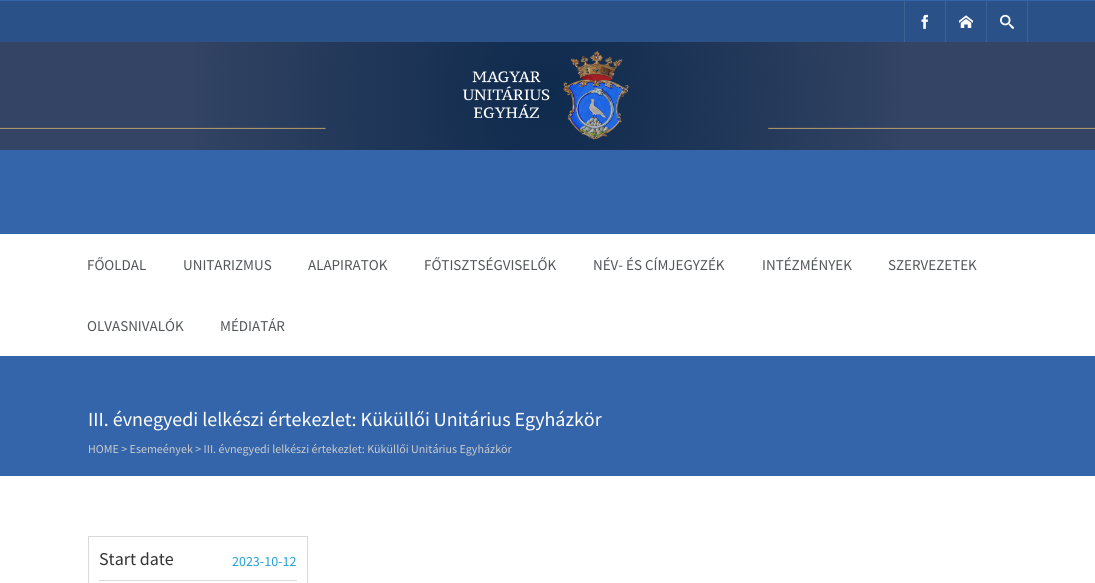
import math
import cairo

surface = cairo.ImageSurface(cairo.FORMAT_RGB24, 1095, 583)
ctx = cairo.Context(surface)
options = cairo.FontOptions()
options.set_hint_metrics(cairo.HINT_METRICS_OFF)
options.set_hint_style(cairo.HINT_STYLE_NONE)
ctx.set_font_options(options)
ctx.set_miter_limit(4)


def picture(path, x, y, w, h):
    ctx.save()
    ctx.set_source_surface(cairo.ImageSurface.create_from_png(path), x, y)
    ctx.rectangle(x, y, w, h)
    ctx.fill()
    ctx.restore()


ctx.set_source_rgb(1, 1, 1)
ctx.paint()
ctx.set_source_rgb(0.204, 0.396, 0.667)
ctx.rectangle(0, 0, 1095, 476)
ctx.fill()
ctx.set_source_rgb(0.165, 0.318, 0.533)
ctx.rectangle(0, 1, 1095, 41)
ctx.fill()
ctx.set_source_rgb(0.247, 0.384, 0.58)
ctx.rectangle(904, 1, 1, 41)
ctx.fill()
picture("img1.png", 921, 14, 8, 15)
ctx.rectangle(945, 1, 1, 41)
ctx.fill()
picture("img2.png", 959, 15, 14, 13)
ctx.rectangle(1027, 1, 1, 41)
ctx.fill()
ctx.rectangle(986, 1, 1, 41)
ctx.fill()
picture("img3.png", 1000, 14, 14, 15)
picture("img4.png", 0, 42, 1095, 108)
ctx.set_source_rgb(1, 1, 1)
ctx.rectangle(0, 234, 1095, 122)
ctx.fill()
ctx.select_font_face("Source Sans Pro")
ctx.set_font_size(15)
ctx.set_source_rgb(0.318, 0.337, 0.349)
ctx.move_to(87, 270)
ctx.show_text("FŐOLDAL")
ctx.move_to(183, 270)
ctx.show_text("UNITARIZMUS")
ctx.move_to(308, 270)
ctx.show_text("ALAPIRATOK")
ctx.move_to(424, 270)
ctx.show_text("FŐTISZTSÉGVISELŐK")
ctx.move_to(593, 270)
ctx.show_text("NÉV- ÉS CÍMJEGYZÉK")
ctx.move_to(762, 270)
ctx.show_text("INTÉZMÉNYEK")
ctx.move_to(888, 270)
ctx.show_text("SZERVEZETEK")
ctx.move_to(87, 331)
ctx.show_text("OLVASNIVALÓK")
ctx.move_to(220, 331)
ctx.show_text("MÉDIATÁR")
ctx.set_font_size(20)
ctx.set_source_rgb(1, 1, 1)
ctx.move_to(88, 426)
ctx.show_text("III. évnegyedi lelkészi értekezlet: Küküllői Unitárius Egyházkör")
ctx.set_font_size(12)
ctx.set_source_rgb(0.8, 0.8, 0.8)
ctx.move_to(88, 453)
ctx.show_text("HOME > Esemeények > III. évnegyedi lelkészi értekezlet: Küküllői Unitárius Egyházkör")
ctx.rectangle(88.5, 536.5, 219, 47)
ctx.set_source_rgb(0.851, 0.851, 0.851)
ctx.set_line_width(1)
ctx.stroke()
ctx.rectangle(99, 580, 198, 1)
ctx.fill()
ctx.set_font_size(18)
ctx.set_source_rgb(0.2, 0.2, 0.2)
ctx.move_to(99, 565)
ctx.show_text("Start date")
ctx.set_font_size(14)
ctx.set_source_rgb(0.137, 0.624, 0.859)
ctx.move_to(232, 566)
ctx.show_text("2023-10-12")
surface.write_to_png("page.png")
